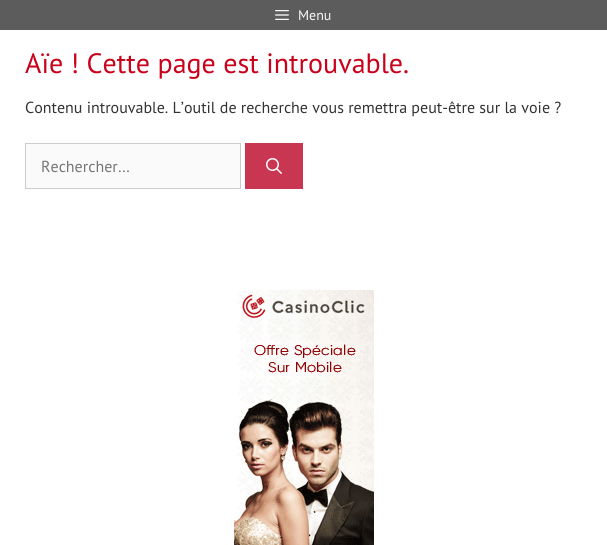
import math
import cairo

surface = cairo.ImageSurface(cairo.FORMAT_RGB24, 607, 545)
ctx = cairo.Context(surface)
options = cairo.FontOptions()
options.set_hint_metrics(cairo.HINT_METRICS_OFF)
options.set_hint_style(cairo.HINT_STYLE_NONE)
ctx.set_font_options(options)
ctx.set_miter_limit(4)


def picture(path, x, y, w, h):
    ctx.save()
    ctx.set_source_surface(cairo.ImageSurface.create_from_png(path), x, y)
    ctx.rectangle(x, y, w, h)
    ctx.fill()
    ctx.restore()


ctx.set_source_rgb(1, 1, 1)
ctx.paint()
ctx.set_source_rgb(0.361, 0.361, 0.361)
ctx.rectangle(0, 0, 607, 30)
ctx.fill()
picture("img1.png", 275, 10, 14, 10)
ctx.select_font_face("PT Sans")
ctx.set_font_size(14)
ctx.set_source_rgb(0.969, 0.973, 0.976)
ctx.move_to(298, 20)
ctx.show_text("Menu")
ctx.set_font_size(28)
ctx.set_source_rgb(0.788, 0.008, 0.11)
ctx.move_to(25, 73)
ctx.show_text("Aïe ! Cette page est introuvable.")
ctx.set_font_size(16)
ctx.set_source_rgb(0.2, 0.2, 0.2)
ctx.move_to(25, 113)
ctx.show_text("Contenu introuvable. L’outil de recherche vous remettra peut-être sur la voie ?")
ctx.set_source_rgb(0.98, 0.98, 0.98)
ctx.rectangle(25.5, 143.5, 215, 45)
ctx.fill_preserve()
ctx.set_source_rgb(0.8, 0.8, 0.8)
ctx.set_line_width(1)
ctx.stroke()
ctx.set_source_rgb(0.459, 0.459, 0.459)
ctx.move_to(41, 172)
ctx.show_text("Rechercher…")
ctx.set_source_rgb(0.788, 0.212, 0.318)
ctx.rectangle(245, 143, 58, 46)
ctx.fill()
picture("img2.png", 266, 158, 16, 16)
picture("img3.png", 234, 290, 140, 255)
surface.write_to_png("page.png")
